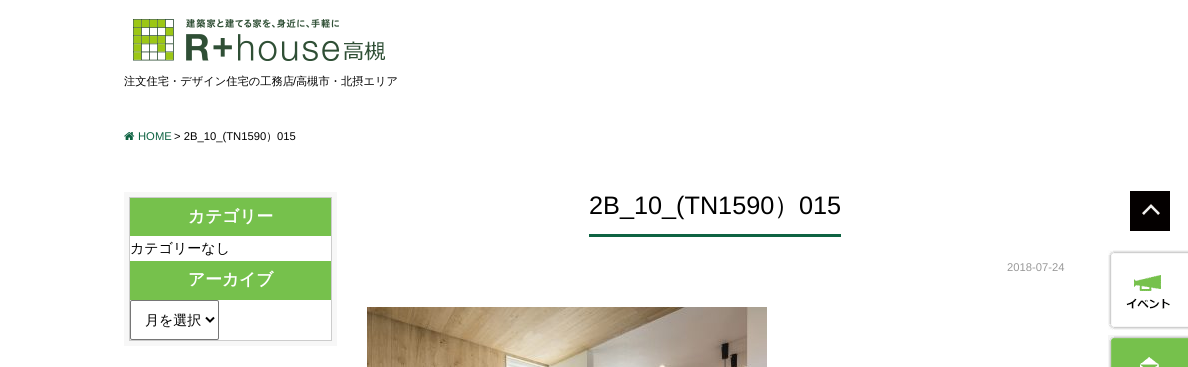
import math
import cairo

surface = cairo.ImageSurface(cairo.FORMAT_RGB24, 1188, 367)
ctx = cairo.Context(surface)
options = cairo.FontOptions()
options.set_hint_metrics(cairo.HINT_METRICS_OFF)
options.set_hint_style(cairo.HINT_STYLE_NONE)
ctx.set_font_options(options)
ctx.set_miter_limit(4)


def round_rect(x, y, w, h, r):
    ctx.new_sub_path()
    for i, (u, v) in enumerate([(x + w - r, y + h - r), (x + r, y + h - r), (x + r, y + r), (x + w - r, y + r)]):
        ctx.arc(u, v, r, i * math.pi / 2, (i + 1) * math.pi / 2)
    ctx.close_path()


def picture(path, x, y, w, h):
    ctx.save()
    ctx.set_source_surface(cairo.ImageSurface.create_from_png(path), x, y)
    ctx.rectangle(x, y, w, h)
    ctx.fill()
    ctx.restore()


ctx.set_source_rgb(1, 1, 1)
ctx.paint()
picture("img1.png", 133, 19, 252, 42)
ctx.select_font_face("WenQuanYi Zen Hei Medium")
ctx.set_font_size(11.25)
ctx.set_source_rgb(0, 0, 0)
ctx.move_to(124, 85)
ctx.show_text("注文住宅・デザイン住宅の工務店")
ctx.select_font_face("Liberation Sans")
ctx.move_to(293, 85)
ctx.show_text("/")
ctx.select_font_face("WenQuanYi Zen Hei Medium")
ctx.move_to(296, 85)
ctx.show_text("高槻市・北摂エリア")
picture("img2.png", 124, 132, 11, 8)
ctx.select_font_face("Liberation Sans")
ctx.set_source_rgb(0.055, 0.388, 0.259)
ctx.move_to(138, 140)
ctx.show_text("HOME")
ctx.set_source_rgb(0, 0, 0)
ctx.move_to(174, 140)
ctx.show_text("> 2B_10_(TN1590")
ctx.select_font_face("WenQuanYi Zen Hei Medium")
ctx.move_to(266, 140)
ctx.show_text("）")
ctx.select_font_face("Liberation Sans")
ctx.move_to(277, 140)
ctx.show_text("015")
ctx.rectangle(126.5, 194.5, 208, 149)
ctx.set_source_rgb(0.965, 0.965, 0.965)
ctx.set_line_width(5)
ctx.stroke()
ctx.rectangle(129.5, 197.5, 202, 143)
ctx.set_source_rgb(0.8, 0.8, 0.8)
ctx.set_line_width(1)
ctx.stroke()
ctx.set_source_rgb(0.463, 0.757, 0.298)
ctx.rectangle(130, 198, 201, 38)
ctx.fill()
ctx.select_font_face("WenQuanYi Zen Hei", cairo.FONT_SLANT_NORMAL, cairo.FONT_WEIGHT_BOLD)
ctx.set_font_size(16.75)
ctx.set_source_rgb(1, 1, 1)
ctx.move_to(188, 222)
ctx.show_text("カテゴリー")
ctx.select_font_face("WenQuanYi Zen Hei Medium")
ctx.set_font_size(14)
ctx.set_source_rgb(0, 0, 0)
ctx.move_to(130, 253)
ctx.show_text("カテゴリーなし")
ctx.set_source_rgb(0.463, 0.757, 0.298)
ctx.rectangle(130, 261, 201, 39)
ctx.fill()
ctx.select_font_face("WenQuanYi Zen Hei", cairo.FONT_SLANT_NORMAL, cairo.FONT_WEIGHT_BOLD)
ctx.set_font_size(16.75)
ctx.set_source_rgb(1, 1, 1)
ctx.move_to(188, 285)
ctx.show_text("アーカイブ")
round_rect(130.5, 300.5, 88, 39, 1.5)
ctx.set_source_rgb(0.463, 0.463, 0.463)
ctx.stroke()
ctx.new_path()
ctx.move_to(206, 317.5)
ctx.line_to(210, 321.5)
ctx.line_to(214, 317.5)
ctx.set_source_rgb(0, 0, 0)
ctx.set_line_width(2)
ctx.stroke()
ctx.select_font_face("WenQuanYi Zen Hei Medium")
ctx.set_font_size(14)
ctx.move_to(145, 325)
ctx.show_text("月を選択")
ctx.set_source_rgb(0.055, 0.388, 0.259)
ctx.rectangle(589, 234, 252, 3)
ctx.fill()
ctx.select_font_face("Liberation Sans")
ctx.set_font_size(25.25)
ctx.set_source_rgb(0, 0, 0)
ctx.move_to(589, 214)
ctx.show_text("2B_10_(TN1590")
ctx.select_font_face("WenQuanYi Zen Hei Medium")
ctx.move_to(774, 214)
ctx.show_text("）")
ctx.select_font_face("Liberation Sans")
ctx.move_to(799, 214)
ctx.show_text("015")
ctx.set_font_size(11.25)
ctx.set_source_rgb(0.6, 0.6, 0.6)
ctx.move_to(1007, 271)
ctx.show_text("2018-07-24")
picture("img3.png", 367, 307, 400, 60)
picture("img4.png", 1130, 191, 40, 40)
picture("img5.png", 1108, 250, 80, 80)
picture("img6.png", 1108, 335, 80, 32)
surface.write_to_png("page.png")
